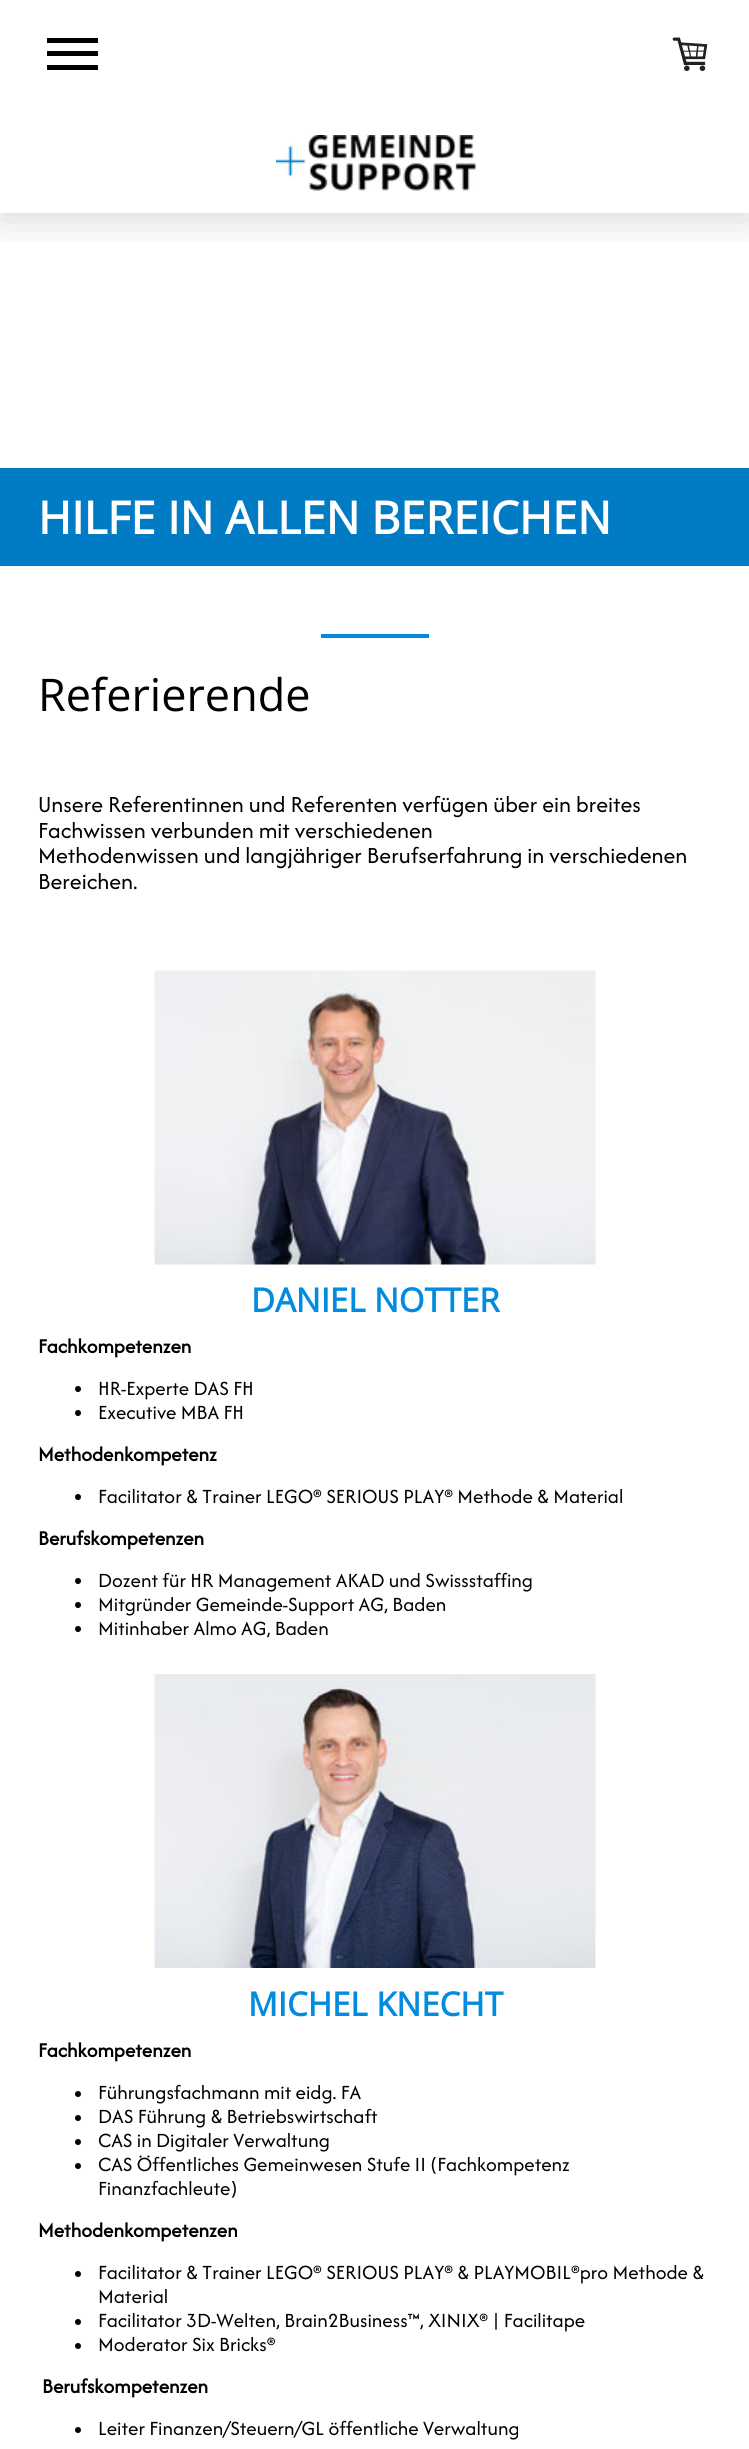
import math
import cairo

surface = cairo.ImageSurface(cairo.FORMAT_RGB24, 749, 2449)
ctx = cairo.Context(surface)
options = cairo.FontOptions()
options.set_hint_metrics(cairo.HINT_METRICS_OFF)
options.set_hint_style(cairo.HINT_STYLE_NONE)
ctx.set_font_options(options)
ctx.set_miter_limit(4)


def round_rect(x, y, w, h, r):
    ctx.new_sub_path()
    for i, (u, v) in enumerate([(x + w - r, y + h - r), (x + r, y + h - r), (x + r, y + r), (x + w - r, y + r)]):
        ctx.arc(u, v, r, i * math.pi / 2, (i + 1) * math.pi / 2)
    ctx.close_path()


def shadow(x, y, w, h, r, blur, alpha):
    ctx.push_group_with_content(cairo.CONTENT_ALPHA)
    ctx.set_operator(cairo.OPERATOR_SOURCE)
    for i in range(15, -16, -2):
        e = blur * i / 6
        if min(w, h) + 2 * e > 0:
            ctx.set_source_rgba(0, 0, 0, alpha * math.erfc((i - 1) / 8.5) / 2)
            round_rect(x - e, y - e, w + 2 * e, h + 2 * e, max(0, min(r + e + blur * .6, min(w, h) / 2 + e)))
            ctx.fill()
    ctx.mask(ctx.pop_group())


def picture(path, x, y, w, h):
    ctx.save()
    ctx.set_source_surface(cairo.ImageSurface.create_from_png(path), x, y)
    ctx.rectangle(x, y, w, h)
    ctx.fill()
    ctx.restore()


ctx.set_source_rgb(1, 1, 1)
ctx.paint()
ctx.save()
ctx.rectangle(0, 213, 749, 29)
ctx.clip()
ctx.set_source_rgb(0, 0, 0)
shadow(0, 113, 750, 100, 0, 22.5, 0.2)
ctx.restore()
picture("img1.png", 672, 37, 36, 34)
ctx.set_source_rgb(1, 1, 1)
ctx.rectangle(0, 76, 749, 37)
ctx.fill()
ctx.set_source_rgb(0, 0, 0)
ctx.rectangle(47, 51, 51, 5)
ctx.fill()
ctx.rectangle(47, 38, 51, 5)
ctx.fill()
ctx.rectangle(47, 65, 51, 5)
ctx.fill()
picture("img2.png", 276, 135, 200, 56)
ctx.set_source_rgb(0.008, 0.482, 0.773)
ctx.rectangle(0, 468, 749, 98)
ctx.fill()
ctx.select_font_face("Open Sans", cairo.FONT_SLANT_NORMAL, cairo.FONT_WEIGHT_BOLD)
ctx.set_font_size(45)
ctx.set_source_rgb(1, 1, 1)
ctx.move_to(38, 534)
ctx.show_text("HILFE IN ALLEN BEREICHEN")
ctx.set_source_rgb(0.008, 0.541, 0.875)
ctx.rectangle(321, 634, 108, 4)
ctx.fill()
ctx.select_font_face("Open Sans")
ctx.set_source_rgb(0, 0, 0)
ctx.move_to(38, 711)
ctx.show_text("Referierende")
ctx.select_font_face("Afacad")
ctx.set_font_size(24)
ctx.move_to(38, 812)
ctx.show_text("Unsere Referentinnen und Referenten verfügen über ein breites")
ctx.move_to(38, 838)
ctx.show_text("Fachwissen verbunden mit verschiedenen")
ctx.move_to(38, 863)
ctx.show_text("Methodenwissen und langjähriger Berufserfahrung in verschiedenen")
ctx.move_to(38, 889)
ctx.show_text("Bereichen.")
picture("img3.png", 154, 970, 442, 295)
ctx.select_font_face("Open Sans", cairo.FONT_SLANT_NORMAL, cairo.FONT_WEIGHT_BOLD)
ctx.set_font_size(33)
ctx.set_source_rgb(0.008, 0.545, 0.875)
ctx.move_to(251, 1312)
ctx.show_text("DANIEL NOTTER")
ctx.select_font_face("Afacad", cairo.FONT_SLANT_NORMAL, cairo.FONT_WEIGHT_BOLD)
ctx.set_font_size(21)
ctx.set_source_rgb(0, 0, 0)
ctx.move_to(38, 1353)
ctx.show_text("Fachkompetenzen")
ctx.new_path()
ctx.arc(78, 1389, 3, 0, 2 * math.pi)
ctx.fill()
ctx.select_font_face("Afacad")
ctx.move_to(98, 1395)
ctx.show_text("HR-Experte DAS FH")
ctx.new_path()
ctx.arc(78, 1413, 3, 0, 2 * math.pi)
ctx.fill()
ctx.move_to(98, 1419)
ctx.show_text("Executive MBA FH")
ctx.select_font_face("Afacad", cairo.FONT_SLANT_NORMAL, cairo.FONT_WEIGHT_BOLD)
ctx.move_to(38, 1461)
ctx.show_text("Methodenkompetenz")
ctx.new_path()
ctx.arc(78, 1497, 3, 0, 2 * math.pi)
ctx.fill()
ctx.select_font_face("Afacad")
ctx.move_to(98, 1503)
ctx.show_text("Facilitator & Trainer LEGO® SERIOUS PLAY® Methode & Material")
ctx.select_font_face("Afacad", cairo.FONT_SLANT_NORMAL, cairo.FONT_WEIGHT_BOLD)
ctx.move_to(38, 1545)
ctx.show_text("Berufskompetenzen")
ctx.new_path()
ctx.arc(78, 1581, 3, 0, 2 * math.pi)
ctx.fill()
ctx.select_font_face("Afacad")
ctx.move_to(98, 1587)
ctx.show_text("Dozent für HR Management AKAD und Swissstaffing")
ctx.new_path()
ctx.arc(78, 1605, 3, 0, 2 * math.pi)
ctx.fill()
ctx.move_to(98, 1611)
ctx.show_text("Mitgründer Gemeinde-Support AG, Baden")
ctx.new_path()
ctx.arc(78, 1629, 3, 0, 2 * math.pi)
ctx.fill()
ctx.move_to(98, 1635)
ctx.show_text("Mitinhaber Almo AG, Baden")
picture("img4.png", 154, 1674, 442, 294)
ctx.select_font_face("Open Sans", cairo.FONT_SLANT_NORMAL, cairo.FONT_WEIGHT_BOLD)
ctx.set_font_size(33)
ctx.set_source_rgb(0.008, 0.545, 0.875)
ctx.move_to(248, 2016)
ctx.show_text("MICHEL KNECHT")
ctx.select_font_face("Afacad", cairo.FONT_SLANT_NORMAL, cairo.FONT_WEIGHT_BOLD)
ctx.set_font_size(21)
ctx.set_source_rgb(0, 0, 0)
ctx.move_to(38, 2057)
ctx.show_text("Fachkompetenzen")
ctx.new_path()
ctx.arc(78, 2094, 3, 0, 2 * math.pi)
ctx.fill()
ctx.select_font_face("Afacad")
ctx.move_to(98, 2099)
ctx.show_text("Führungsfachmann mit eidg. FA")
ctx.new_path()
ctx.arc(78, 2118, 3, 0, 2 * math.pi)
ctx.fill()
ctx.move_to(98, 2123)
ctx.show_text("DAS Führung & Betriebswirtschaft")
ctx.new_path()
ctx.arc(78, 2142, 3, 0, 2 * math.pi)
ctx.fill()
ctx.move_to(98, 2147)
ctx.show_text("CAS in Digitaler Verwaltung")
ctx.new_path()
ctx.arc(78, 2166, 3, 0, 2 * math.pi)
ctx.fill()
ctx.move_to(98, 2171)
ctx.show_text("CAS Öffentliches Gemeinwesen Stufe II (Fachkompetenz")
ctx.move_to(98, 2195)
ctx.show_text("Finanzfachleute)")
ctx.select_font_face("Afacad", cairo.FONT_SLANT_NORMAL, cairo.FONT_WEIGHT_BOLD)
ctx.move_to(38, 2237)
ctx.show_text("Methodenkompetenzen")
ctx.new_path()
ctx.arc(78, 2274, 3, 0, 2 * math.pi)
ctx.fill()
ctx.select_font_face("Afacad")
ctx.move_to(98, 2279)
ctx.show_text("Facilitator & Trainer LEGO® SERIOUS PLAY® & PLAYMOBIL®pro Methode &")
ctx.move_to(98, 2303)
ctx.show_text("Material")
ctx.new_path()
ctx.arc(78, 2322, 3, 0, 2 * math.pi)
ctx.fill()
ctx.move_to(98, 2327)
ctx.show_text("Facilitator 3D-Welten, Brain2Business™, XINIX® | Facilitape")
ctx.new_path()
ctx.arc(78, 2346, 3, 0, 2 * math.pi)
ctx.fill()
ctx.move_to(98, 2351)
ctx.show_text("Moderator Six Bricks®")
ctx.select_font_face("Afacad", cairo.FONT_SLANT_NORMAL, cairo.FONT_WEIGHT_BOLD)
ctx.move_to(42, 2393)
ctx.show_text("Berufskompetenzen")
ctx.new_path()
ctx.arc(78, 2430, 3, 0, 2 * math.pi)
ctx.fill()
ctx.select_font_face("Afacad")
ctx.move_to(98, 2435)
ctx.show_text("Leiter Finanzen/Steuern/GL öffentliche Verwaltung")
surface.write_to_png("page.png")
